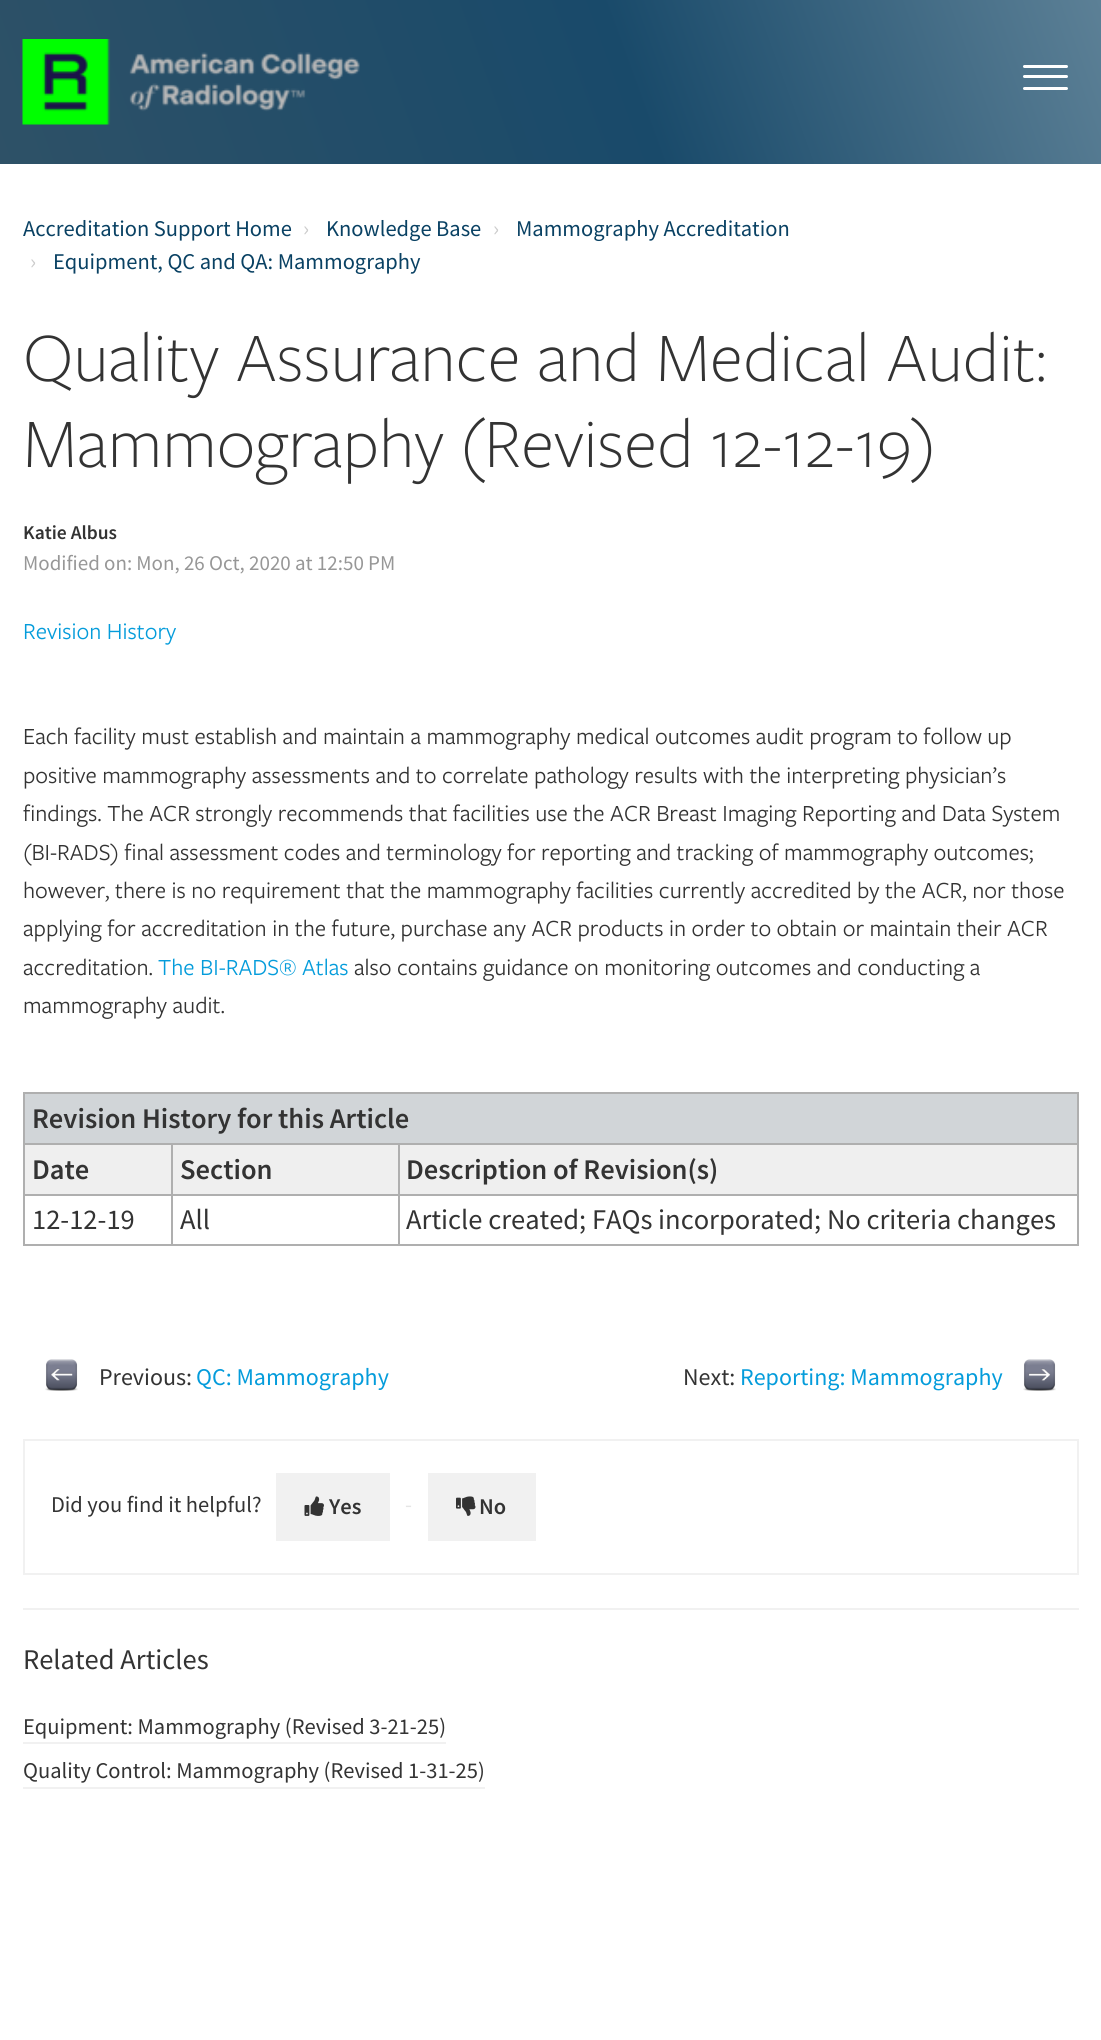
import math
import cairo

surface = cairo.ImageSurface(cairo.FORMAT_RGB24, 1101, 2040)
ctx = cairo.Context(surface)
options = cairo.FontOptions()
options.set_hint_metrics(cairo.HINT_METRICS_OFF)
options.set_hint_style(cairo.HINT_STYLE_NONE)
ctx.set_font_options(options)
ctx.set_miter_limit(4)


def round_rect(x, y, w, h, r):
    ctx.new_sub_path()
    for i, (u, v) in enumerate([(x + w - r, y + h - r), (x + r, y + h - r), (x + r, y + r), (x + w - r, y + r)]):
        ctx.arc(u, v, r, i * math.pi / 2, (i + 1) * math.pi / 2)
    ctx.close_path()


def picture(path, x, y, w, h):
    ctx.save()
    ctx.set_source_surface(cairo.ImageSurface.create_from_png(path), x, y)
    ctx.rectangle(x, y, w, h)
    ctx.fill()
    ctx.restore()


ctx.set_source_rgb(1, 1, 1)
ctx.paint()
gradient = cairo.LinearGradient(1063, -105, 38, 268)
gradient.add_color_stop_rgba(0, 0.361, 0.502, 0.588, 1)
gradient.add_color_stop_rgba(0.43, 0.098, 0.29, 0.416, 1)
gradient.add_color_stop_rgba(1, 0.18, 0.318, 0.404, 1)
ctx.set_source(gradient)
ctx.rectangle(0, 0, 1101, 164)
ctx.fill()
picture("img1.png", 22, 39, 338, 86)
ctx.set_source_rgb(1, 1, 1)
round_rect(1023, 75, 45, 3, 1.5)
ctx.fill()
round_rect(1023, 65, 45, 3, 1.5)
ctx.fill()
round_rect(1023, 87, 45, 3, 1.5)
ctx.fill()
ctx.select_font_face("Source Sans Pro")
ctx.set_font_size(22.5)
ctx.set_source_rgb(0.039, 0.255, 0.388)
ctx.move_to(23, 236)
ctx.show_text("Accreditation Support Home")
ctx.set_source_rgb(0.8, 0.8, 0.8)
ctx.move_to(303, 236)
ctx.show_text("›")
ctx.set_source_rgb(0.039, 0.255, 0.388)
ctx.move_to(326, 236)
ctx.show_text("Knowledge Base")
ctx.set_source_rgb(0.8, 0.8, 0.8)
ctx.move_to(493, 236)
ctx.show_text("›")
ctx.set_source_rgb(0.039, 0.255, 0.388)
ctx.move_to(516, 236)
ctx.show_text("Mammography Accreditation")
ctx.set_source_rgb(0.8, 0.8, 0.8)
ctx.move_to(30, 269)
ctx.show_text("›")
ctx.set_source_rgb(0.039, 0.255, 0.388)
ctx.move_to(53, 269)
ctx.show_text("Equipment, QC and QA: Mammography")
ctx.select_font_face("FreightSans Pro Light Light")
ctx.set_font_size(72)
ctx.set_source_rgb(0.2, 0.2, 0.2)
ctx.move_to(23, 381)
ctx.show_text("Quality Assurance and Medical Audit:")
ctx.move_to(23, 467)
ctx.show_text("Mammography (Revised 12-12-19)")
ctx.select_font_face("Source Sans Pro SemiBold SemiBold")
ctx.set_font_size(19.5)
ctx.move_to(23, 539)
ctx.show_text("Katie Albus")
ctx.select_font_face("Source Sans Pro")
ctx.set_font_size(21)
ctx.set_source_rgb(0.592, 0.592, 0.592)
ctx.move_to(23, 570)
ctx.show_text("Modified on: Mon, 26 Oct, 2020 at 12:50 PM")
ctx.select_font_face("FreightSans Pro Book")
ctx.set_font_size(24)
ctx.set_source_rgb(0.016, 0.612, 0.859)
ctx.move_to(23, 639)
ctx.show_text("Revision History")
ctx.set_source_rgb(0.2, 0.2, 0.2)
ctx.move_to(23, 744)
ctx.show_text("Each facility must establish and maintain a mammography medical outcomes audit program to follow up")
ctx.move_to(23, 783)
ctx.show_text("positive mammography assessments and to correlate pathology results with the interpreting physician’s")
ctx.move_to(23, 821)
ctx.show_text("findings. The ACR strongly recommends that facilities use the ACR Breast Imaging Reporting and Data System")
ctx.move_to(23, 860)
ctx.show_text("(BI-RADS) final assessment codes and terminology for reporting and tracking of mammography outcomes;")
ctx.move_to(23, 898)
ctx.show_text("however, there is no requirement that the mammography facilities currently accredited by the ACR, nor those")
ctx.move_to(23, 936)
ctx.show_text("applying for accreditation in the future, purchase any ACR products in order to obtain or maintain their ACR")
ctx.move_to(23, 975)
ctx.show_text("accreditation.")
ctx.set_source_rgb(0.016, 0.612, 0.859)
ctx.move_to(158, 975)
ctx.show_text("The BI-RADS® Atlas")
ctx.set_source_rgb(0.2, 0.2, 0.2)
ctx.move_to(354, 975)
ctx.show_text("also contains guidance on monitoring outcomes and conducting a")
ctx.move_to(23, 1013)
ctx.show_text("mammography audit.")
ctx.set_source_rgb(0.686, 0.686, 0.686)
ctx.rectangle(23, 1092, 1056, 2)
ctx.fill()
ctx.set_source_rgb(0.82, 0.835, 0.847)
ctx.rectangle(25, 1094, 1052, 49)
ctx.fill()
ctx.select_font_face("Source Sans Pro SemiBold SemiBold")
ctx.set_font_size(28.5)
ctx.set_source_rgb(0.2, 0.2, 0.2)
ctx.move_to(32, 1128)
ctx.show_text("Revision History for this Article")
ctx.set_source_rgb(0.937, 0.937, 0.937)
ctx.rectangle(25, 1145, 146, 49)
ctx.fill()
ctx.set_source_rgb(0.686, 0.686, 0.686)
ctx.rectangle(398, 1143, 681, 2)
ctx.fill()
ctx.rectangle(398, 1194, 681, 2)
ctx.fill()
ctx.rectangle(1077, 1194, 2, 51)
ctx.fill()
ctx.rectangle(398, 1244, 681, 2)
ctx.fill()
ctx.rectangle(398, 1194, 2, 51)
ctx.fill()
ctx.rectangle(171, 1194, 228, 2)
ctx.fill()
ctx.rectangle(398, 1143, 2, 53)
ctx.fill()
ctx.rectangle(171, 1143, 228, 2)
ctx.fill()
ctx.rectangle(171, 1244, 228, 2)
ctx.fill()
ctx.rectangle(171, 1194, 2, 51)
ctx.fill()
ctx.rectangle(23, 1194, 150, 2)
ctx.fill()
ctx.rectangle(171, 1143, 2, 53)
ctx.fill()
ctx.rectangle(23, 1143, 150, 2)
ctx.fill()
ctx.rectangle(23, 1244, 150, 2)
ctx.fill()
ctx.rectangle(23, 1194, 2, 51)
ctx.fill()
ctx.rectangle(23, 1092, 2, 104)
ctx.fill()
ctx.set_source_rgb(0.2, 0.2, 0.2)
ctx.move_to(32, 1179)
ctx.show_text("Date")
ctx.set_source_rgb(0.937, 0.937, 0.937)
ctx.rectangle(173, 1145, 225, 49)
ctx.fill()
ctx.set_source_rgb(0.2, 0.2, 0.2)
ctx.move_to(180, 1179)
ctx.show_text("Section")
ctx.set_source_rgb(0.937, 0.937, 0.937)
ctx.rectangle(400, 1145, 677, 49)
ctx.fill()
ctx.set_source_rgb(0.686, 0.686, 0.686)
ctx.rectangle(1077, 1092, 2, 104)
ctx.fill()
ctx.set_source_rgb(0.2, 0.2, 0.2)
ctx.move_to(406, 1179)
ctx.show_text("Description of Revision(s)")
ctx.select_font_face("Source Sans Pro")
ctx.move_to(32, 1229)
ctx.show_text("12-12-19")
ctx.move_to(180, 1229)
ctx.show_text("All")
ctx.move_to(406, 1229)
ctx.show_text("Article created; FAQs incorporated; No criteria changes")
picture("img2.png", 45, 1359, 33, 32)
ctx.set_font_size(24)
ctx.move_to(99, 1385)
ctx.show_text("Previous:")
ctx.set_source_rgb(0.016, 0.612, 0.859)
ctx.move_to(196, 1385)
ctx.show_text("QC: Mammography")
ctx.set_source_rgb(0.2, 0.2, 0.2)
ctx.move_to(683, 1385)
ctx.show_text("Next:")
ctx.set_source_rgb(0.016, 0.612, 0.859)
ctx.move_to(740, 1385)
ctx.show_text("Reporting: Mammography")
picture("img3.png", 1023, 1359, 33, 32)
ctx.rectangle(24, 1440, 1054, 134)
ctx.set_source_rgb(0.945, 0.945, 0.945)
ctx.stroke()
ctx.set_font_size(22.5)
ctx.set_source_rgb(0.2, 0.2, 0.2)
ctx.move_to(51, 1512)
ctx.show_text("Did you find it helpful?")
ctx.set_source_rgb(0.945, 0.945, 0.945)
ctx.rectangle(276, 1473, 114, 68)
ctx.fill()
picture("img4.png", 304, 1496, 20, 20)
ctx.select_font_face("Source Sans Pro SemiBold SemiBold")
ctx.set_source_rgb(0.2, 0.2, 0.2)
ctx.move_to(329, 1514)
ctx.show_text("Yes")
ctx.select_font_face("Source Sans Pro")
ctx.set_source_rgb(0.898, 0.898, 0.898)
ctx.move_to(405, 1512)
ctx.show_text("-")
ctx.set_source_rgb(0.945, 0.945, 0.945)
ctx.rectangle(428, 1473, 108, 68)
ctx.fill()
picture("img5.png", 456, 1496, 20, 20)
ctx.select_font_face("Source Sans Pro SemiBold SemiBold")
ctx.set_source_rgb(0.2, 0.2, 0.2)
ctx.move_to(479, 1514)
ctx.show_text("No")
ctx.set_source_rgb(0.945, 0.945, 0.945)
ctx.rectangle(23, 1608, 1056, 2)
ctx.fill()
ctx.select_font_face("Source Sans Pro")
ctx.set_font_size(28.5)
ctx.set_source_rgb(0.2, 0.2, 0.2)
ctx.move_to(23, 1669)
ctx.show_text("Related Articles")
ctx.set_font_size(22.5)
ctx.move_to(23, 1734)
ctx.show_text("Equipment: Mammography (Revised 3-21-25)")
ctx.set_source_rgb(0.945, 0.945, 0.945)
ctx.rectangle(23, 1742, 423, 2)
ctx.fill()
ctx.set_source_rgb(0.2, 0.2, 0.2)
ctx.move_to(23, 1778)
ctx.show_text("Quality Control: Mammography (Revised 1-31-25)")
ctx.set_source_rgb(0.945, 0.945, 0.945)
ctx.rectangle(23, 1787, 462, 2)
ctx.fill()
surface.write_to_png("page.png")
